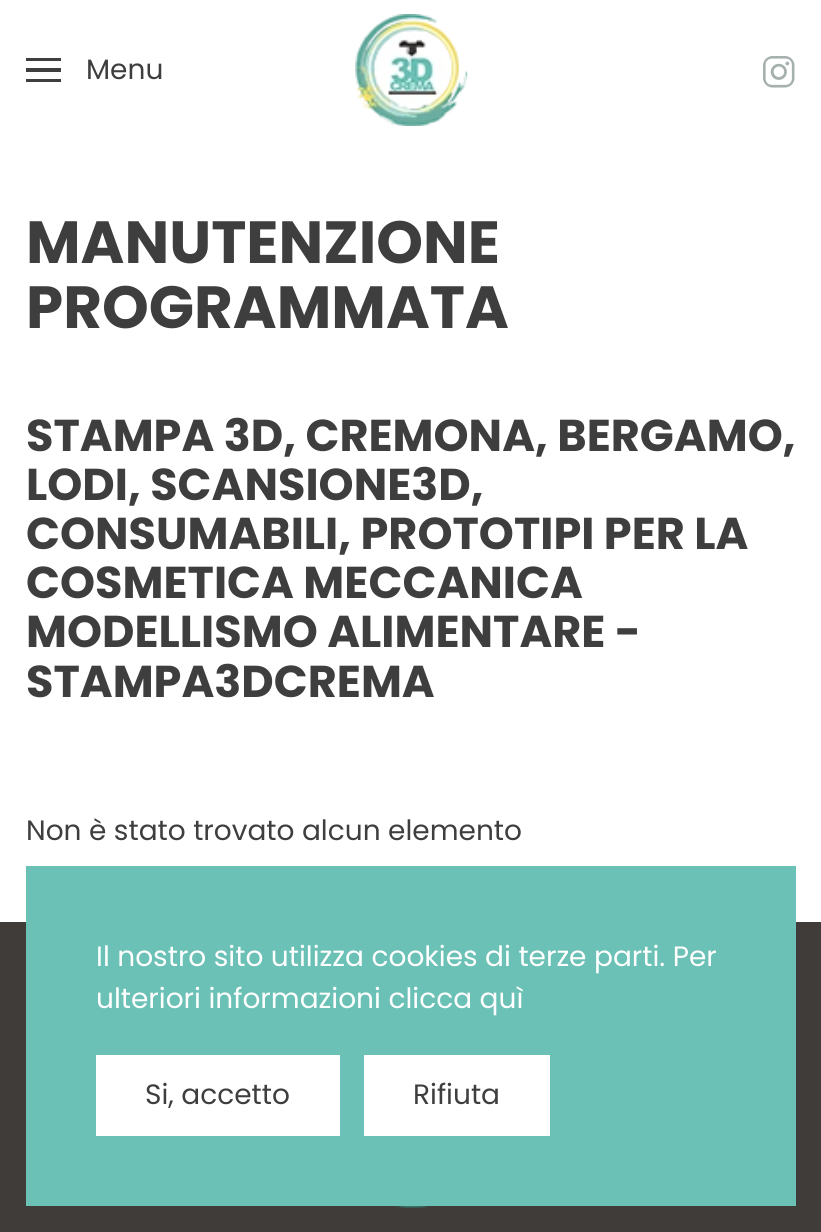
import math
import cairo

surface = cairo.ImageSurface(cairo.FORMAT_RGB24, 821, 1232)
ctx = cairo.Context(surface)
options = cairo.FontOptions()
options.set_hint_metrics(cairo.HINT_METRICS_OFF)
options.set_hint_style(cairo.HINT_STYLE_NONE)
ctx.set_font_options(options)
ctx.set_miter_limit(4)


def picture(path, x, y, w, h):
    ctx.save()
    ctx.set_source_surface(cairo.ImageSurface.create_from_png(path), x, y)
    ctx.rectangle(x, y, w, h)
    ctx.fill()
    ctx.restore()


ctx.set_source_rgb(1, 1, 1)
ctx.paint()
ctx.set_source_rgb(0.243, 0.243, 0.243)
ctx.rectangle(26, 58, 35, 3)
ctx.fill()
ctx.rectangle(26, 68, 35, 4)
ctx.fill()
ctx.rectangle(26, 79, 35, 3)
ctx.fill()
ctx.select_font_face("Poppins")
ctx.set_font_size(28)
ctx.move_to(86, 79)
ctx.show_text("Menu")
picture("img1.png", 355, 14, 113, 112)
picture("img2.png", 763, 56, 32, 32)
ctx.select_font_face("Poppins", cairo.FONT_SLANT_NORMAL, cairo.FONT_WEIGHT_BOLD)
ctx.set_font_size(59.5)
ctx.move_to(26, 263)
ctx.show_text("MANUTENZIONE")
ctx.move_to(26, 328)
ctx.show_text("PROGRAMMATA")
ctx.set_font_size(44.6)
ctx.move_to(26, 451)
ctx.show_text("STAMPA 3D, CREMONA, BERGAMO,")
ctx.move_to(26, 500)
ctx.show_text("LODI, SCANSIONE3D,")
ctx.move_to(26, 549)
ctx.show_text("CONSUMABILI, PROTOTIPI PER LA")
ctx.move_to(26, 598)
ctx.show_text("COSMETICA MECCANICA")
ctx.move_to(26, 647)
ctx.show_text("MODELLISMO ALIMENTARE -")
ctx.move_to(26, 697)
ctx.show_text("STAMPA3DCREMA")
ctx.select_font_face("Poppins")
ctx.set_font_size(28)
ctx.move_to(26, 840)
ctx.show_text("Non è stato trovato alcun elemento")
ctx.set_source_rgb(0.251, 0.235, 0.227)
ctx.rectangle(0, 922, 821, 310)
ctx.fill()
picture("img3.png", 393, 1206, 38, 2)
ctx.set_source_rgb(0.42, 0.757, 0.714)
ctx.rectangle(26, 866, 770, 340)
ctx.fill()
ctx.set_source_rgb(1, 1, 1)
ctx.move_to(96, 966)
ctx.show_text("Il nostro sito utilizza cookies di terze parti. Per")
ctx.move_to(96, 1008)
ctx.show_text("ulteriori informazioni clicca quì")
ctx.rectangle(96, 1055, 244, 81)
ctx.fill()
ctx.set_source_rgb(0.243, 0.243, 0.243)
ctx.move_to(145, 1104)
ctx.show_text("Si, accetto")
ctx.set_source_rgb(1, 1, 1)
ctx.rectangle(364, 1055, 186, 81)
ctx.fill()
ctx.set_source_rgb(0.243, 0.243, 0.243)
ctx.move_to(413, 1104)
ctx.show_text("Rifiuta")
surface.write_to_png("page.png")
